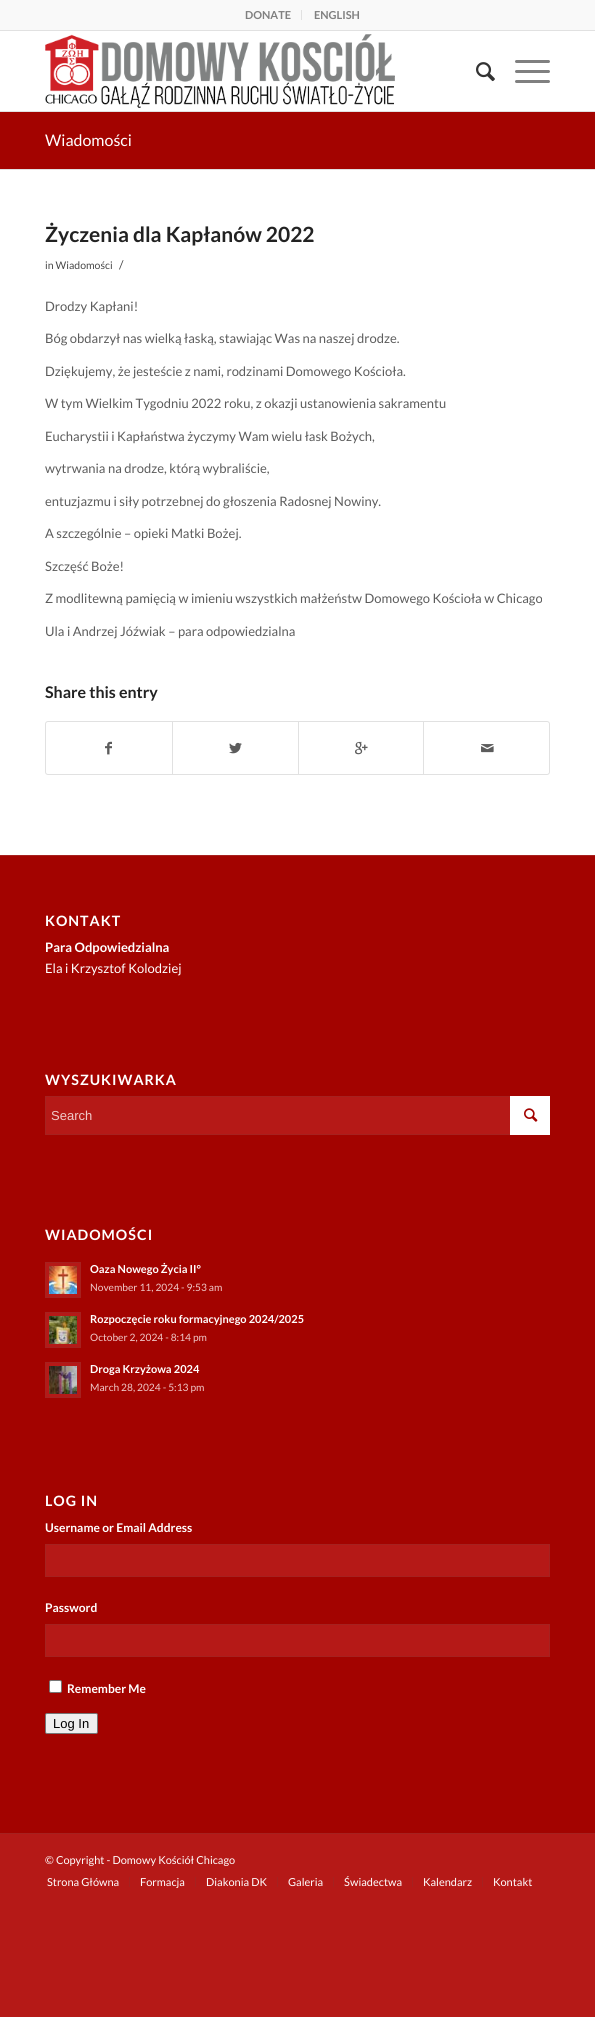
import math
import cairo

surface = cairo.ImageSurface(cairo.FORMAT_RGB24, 595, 2017)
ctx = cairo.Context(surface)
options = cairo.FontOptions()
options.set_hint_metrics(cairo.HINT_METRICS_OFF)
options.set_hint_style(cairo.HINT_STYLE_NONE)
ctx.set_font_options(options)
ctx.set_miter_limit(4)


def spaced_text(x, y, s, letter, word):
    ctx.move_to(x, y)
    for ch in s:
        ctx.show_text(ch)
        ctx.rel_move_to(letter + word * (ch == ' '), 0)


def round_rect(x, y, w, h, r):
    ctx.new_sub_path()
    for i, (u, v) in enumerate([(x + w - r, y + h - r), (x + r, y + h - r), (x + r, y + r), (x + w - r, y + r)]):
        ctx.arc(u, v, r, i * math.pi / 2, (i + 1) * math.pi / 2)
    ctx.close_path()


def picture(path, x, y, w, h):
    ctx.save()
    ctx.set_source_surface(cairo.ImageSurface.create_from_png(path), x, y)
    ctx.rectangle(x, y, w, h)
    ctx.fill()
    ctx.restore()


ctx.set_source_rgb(0.71, 0.098, 0.09)
ctx.paint()
ctx.set_source_rgb(0.973, 0.973, 0.973)
ctx.rectangle(0, 0, 595, 30)
ctx.fill()
ctx.set_source_rgb(0.882, 0.882, 0.882)
ctx.rectangle(0, 30, 595, 1)
ctx.fill()
ctx.rectangle(301, 10, 1, 10)
ctx.fill()
ctx.select_font_face("Lato", cairo.FONT_SLANT_NORMAL, cairo.FONT_WEIGHT_BOLD)
ctx.set_font_size(11)
ctx.set_source_rgb(0.502, 0.502, 0.502)
ctx.move_to(245, 19)
ctx.show_text("DONATE")
ctx.move_to(314, 19)
ctx.show_text("ENGLISH")
ctx.set_source_rgb(1, 1, 1)
ctx.rectangle(0, 31, 595, 80)
ctx.fill()
ctx.set_source_rgb(0.882, 0.882, 0.882)
ctx.rectangle(0, 111, 595, 1)
ctx.fill()
picture("img1.png", 45, 34, 350, 74)
picture("img2.png", 476, 62, 19, 20)
ctx.set_source_rgb(0.502, 0.502, 0.502)
round_rect(515, 70, 35, 3, 1.5)
ctx.fill()
round_rect(515, 60, 35, 3, 1.5)
ctx.fill()
round_rect(515, 80, 35, 3, 1.5)
ctx.fill()
ctx.set_source_rgb(1, 1, 1)
ctx.rectangle(0, 170, 595, 685)
ctx.fill()
ctx.set_source_rgb(0.639, 0.012, 0)
ctx.rectangle(0, 112, 595, 57)
ctx.fill()
ctx.select_font_face("Lato")
ctx.set_font_size(16)
ctx.set_source_rgb(1, 1, 1)
ctx.move_to(45, 146)
ctx.show_text("Wiadomości")
ctx.set_source_rgb(0.882, 0.882, 0.882)
ctx.rectangle(0, 169, 595, 1)
ctx.fill()
ctx.select_font_face("Lato", cairo.FONT_SLANT_NORMAL, cairo.FONT_WEIGHT_BOLD)
ctx.set_font_size(21)
ctx.set_source_rgb(0.133, 0.133, 0.133)
ctx.move_to(45, 242)
ctx.show_text("Życzenia dla Kapłanów 2022")
ctx.select_font_face("Lato")
ctx.set_font_size(10.5)
ctx.set_source_rgb(0.278, 0.278, 0.278)
ctx.move_to(45, 269)
ctx.show_text("in Wiadomości")
ctx.set_font_size(12)
ctx.move_to(119, 269)
ctx.show_text("/")
ctx.set_font_size(13)
ctx.set_source_rgb(0.361, 0.361, 0.361)
ctx.move_to(45, 311)
ctx.show_text("Drodzy Kapłani!")
ctx.move_to(45, 343)
ctx.show_text("Bóg obdarzył nas wielką łaską, stawiając Was na naszej drodze.")
ctx.move_to(45, 376)
ctx.show_text("Dziękujemy, że jesteście z nami, rodzinami Domowego Kościoła.")
ctx.move_to(45, 408)
ctx.show_text("W tym Wielkim Tygodniu 2022 roku, z okazji ustanowienia sakramentu")
ctx.move_to(45, 441)
ctx.show_text("Eucharystii i Kapłaństwa życzymy Wam wielu łask Bożych,")
ctx.move_to(45, 473)
ctx.show_text("wytrwania na drodze, którą wybraliście,")
ctx.move_to(45, 506)
ctx.show_text("entuzjazmu i siły potrzebnej do głoszenia Radosnej Nowiny.")
ctx.move_to(45, 538)
ctx.show_text("A szczególnie – opieki Matki Bożej.")
ctx.move_to(45, 571)
ctx.show_text("Szczęść Boże!")
ctx.move_to(45, 603)
ctx.show_text("Z modlitewną pamięcią w imieniu wszystkich małżeństw Domowego Kościoła w Chicago")
ctx.move_to(45, 636)
ctx.show_text("Ula i Andrzej Jóźwiak – para odpowiedzialna")
ctx.select_font_face("Lato", cairo.FONT_SLANT_NORMAL, cairo.FONT_WEIGHT_BOLD)
ctx.set_font_size(16)
ctx.set_source_rgb(0.133, 0.133, 0.133)
ctx.move_to(45, 698)
ctx.show_text("Share this entry")
round_rect(45.5, 721.5, 504, 53, 2.5)
ctx.set_source_rgb(0.882, 0.882, 0.882)
ctx.set_line_width(1)
ctx.stroke()
picture("img3.png", 105, 741, 7, 14)
ctx.rectangle(172, 722, 1, 52)
ctx.fill()
picture("img4.png", 229, 742, 13, 12)
ctx.rectangle(298, 722, 1, 52)
ctx.fill()
picture("img5.png", 355, 741, 13, 14)
ctx.rectangle(423, 722, 1, 52)
ctx.fill()
picture("img6.png", 481, 744, 13, 9)
ctx.set_source_rgb(0.639, 0.012, 0)
ctx.rectangle(0, 856, 595, 977)
ctx.fill()
ctx.set_source_rgb(0.651, 0.129, 0.122)
ctx.rectangle(0, 855, 595, 1)
ctx.fill()
ctx.set_font_size(14.25)
ctx.set_source_rgb(1, 1, 1)
spaced_text(45, 926, "KONTAKT", 1, 0)
ctx.set_font_size(13)
ctx.move_to(45, 952)
ctx.show_text("Para Odpowiedzialna")
ctx.select_font_face("Lato")
ctx.move_to(45, 973)
ctx.show_text("Ela i Krzysztof Kolodziej")
ctx.select_font_face("Lato", cairo.FONT_SLANT_NORMAL, cairo.FONT_WEIGHT_BOLD)
ctx.set_font_size(14.25)
spaced_text(45, 1085, "WYSZUKIWARKA", 1, 0)
ctx.set_source_rgb(0.71, 0.098, 0.09)
ctx.rectangle(46, 1097, 464, 37)
ctx.fill()
ctx.rectangle(45.5, 1096.5, 504, 38)
ctx.set_source_rgb(0.651, 0.129, 0.122)
ctx.stroke()
ctx.select_font_face("Liberation Sans")
ctx.set_font_size(13)
ctx.set_source_rgb(0.941, 0.788, 0.788)
ctx.move_to(51, 1120)
ctx.show_text("Search")
ctx.set_source_rgb(1, 1, 1)
ctx.rectangle(510, 1096, 40, 39)
ctx.fill()
picture("img7.png", 524, 1108, 14, 14)
ctx.select_font_face("Lato", cairo.FONT_SLANT_NORMAL, cairo.FONT_WEIGHT_BOLD)
ctx.set_font_size(14.25)
spaced_text(45, 1240, "WIADOMOŚCI", 1, 0)
ctx.set_source_rgb(0.71, 0.098, 0.09)
ctx.rectangle(45.5, 1262.5, 35, 35)
ctx.fill_preserve()
ctx.set_source_rgb(0.651, 0.129, 0.122)
ctx.stroke()
picture("img8.png", 49, 1266, 28, 28)
ctx.set_font_size(11)
ctx.set_source_rgb(1, 1, 1)
ctx.move_to(90, 1273)
ctx.show_text("Oaza Nowego Życia II°")
ctx.select_font_face("Lato")
ctx.set_font_size(10.2)
ctx.set_source_rgb(0.941, 0.788, 0.788)
ctx.move_to(90, 1291)
ctx.show_text("November 11, 2024 - 9:53 am")
ctx.set_source_rgb(0.71, 0.098, 0.09)
ctx.rectangle(45.5, 1312.5, 35, 35)
ctx.fill_preserve()
ctx.set_source_rgb(0.651, 0.129, 0.122)
ctx.stroke()
picture("img9.png", 49, 1316, 28, 28)
ctx.select_font_face("Lato", cairo.FONT_SLANT_NORMAL, cairo.FONT_WEIGHT_BOLD)
ctx.set_font_size(11)
ctx.set_source_rgb(1, 1, 1)
ctx.move_to(90, 1323)
ctx.show_text("Rozpoczęcie roku formacyjnego 2024/2025")
ctx.select_font_face("Lato")
ctx.set_font_size(10.2)
ctx.set_source_rgb(0.941, 0.788, 0.788)
ctx.move_to(90, 1341)
ctx.show_text("October 2, 2024 - 8:14 pm")
ctx.set_source_rgb(0.71, 0.098, 0.09)
ctx.rectangle(45.5, 1362.5, 35, 35)
ctx.fill_preserve()
ctx.set_source_rgb(0.651, 0.129, 0.122)
ctx.stroke()
picture("img10.png", 49, 1366, 28, 28)
ctx.select_font_face("Lato", cairo.FONT_SLANT_NORMAL, cairo.FONT_WEIGHT_BOLD)
ctx.set_font_size(11)
ctx.set_source_rgb(1, 1, 1)
ctx.move_to(90, 1373)
ctx.show_text("Droga Krzyżowa 2024")
ctx.select_font_face("Lato")
ctx.set_font_size(10.2)
ctx.set_source_rgb(0.941, 0.788, 0.788)
ctx.move_to(90, 1391)
ctx.show_text("March 28, 2024 - 5:13 pm")
ctx.select_font_face("Lato", cairo.FONT_SLANT_NORMAL, cairo.FONT_WEIGHT_BOLD)
ctx.set_font_size(14.25)
ctx.set_source_rgb(1, 1, 1)
spaced_text(45, 1506, "LOG IN", 1, 0)
ctx.set_font_size(12)
ctx.move_to(45, 1532)
ctx.show_text("Username or Email Address")
ctx.set_source_rgb(0.71, 0.098, 0.09)
ctx.rectangle(45.5, 1544.5, 504, 32)
ctx.fill_preserve()
ctx.set_source_rgb(0.651, 0.129, 0.122)
ctx.stroke()
ctx.set_source_rgb(1, 1, 1)
ctx.move_to(45, 1612)
ctx.show_text("Password")
ctx.set_source_rgb(0.71, 0.098, 0.09)
ctx.rectangle(45.5, 1624.5, 504, 32)
ctx.fill_preserve()
ctx.set_source_rgb(0.651, 0.129, 0.122)
ctx.stroke()
ctx.set_source_rgb(1, 1, 1)
round_rect(49.5, 1680.5, 12, 12, 1.5)
ctx.fill_preserve()
ctx.set_source_rgb(0.463, 0.463, 0.463)
ctx.stroke()
ctx.set_source_rgb(1, 1, 1)
ctx.move_to(67, 1693)
ctx.show_text("Remember Me")
ctx.set_source_rgb(0.937, 0.937, 0.937)
round_rect(45.5, 1713.5, 52, 20, 1.5)
ctx.fill_preserve()
ctx.set_source_rgb(0.463, 0.463, 0.463)
ctx.stroke()
ctx.select_font_face("Liberation Sans")
ctx.set_font_size(13)
ctx.set_source_rgb(0, 0, 0)
ctx.move_to(53, 1728)
ctx.show_text("Log In")
ctx.set_source_rgb(0.651, 0.129, 0.122)
ctx.rectangle(0, 1833, 595, 1)
ctx.fill()
ctx.select_font_face("Lato")
ctx.set_font_size(11)
ctx.set_source_rgb(1, 1, 1)
ctx.move_to(45, 1864)
ctx.show_text("© Copyright - Domowy Kościół Chicago")
ctx.move_to(47, 1886)
ctx.show_text("Strona Główna")
ctx.set_source_rgb(0.651, 0.129, 0.122)
ctx.rectangle(129, 1877, 1, 10)
ctx.fill()
ctx.set_source_rgb(1, 1, 1)
ctx.move_to(140, 1886)
ctx.show_text("Formacja")
ctx.set_source_rgb(0.651, 0.129, 0.122)
ctx.rectangle(195, 1877, 1, 10)
ctx.fill()
ctx.set_source_rgb(1, 1, 1)
ctx.move_to(206, 1886)
ctx.show_text("Diakonia DK")
ctx.set_source_rgb(0.651, 0.129, 0.122)
ctx.rectangle(277, 1877, 1, 10)
ctx.fill()
ctx.set_source_rgb(1, 1, 1)
ctx.move_to(288, 1886)
ctx.show_text("Galeria")
ctx.set_source_rgb(0.651, 0.129, 0.122)
ctx.rectangle(333, 1877, 1, 10)
ctx.fill()
ctx.set_source_rgb(1, 1, 1)
ctx.move_to(344, 1886)
ctx.show_text("Świadectwa")
ctx.set_source_rgb(0.651, 0.129, 0.122)
ctx.rectangle(412, 1877, 1, 10)
ctx.fill()
ctx.set_source_rgb(1, 1, 1)
ctx.move_to(423, 1886)
ctx.show_text("Kalendarz")
ctx.set_source_rgb(0.651, 0.129, 0.122)
ctx.rectangle(482, 1877, 1, 10)
ctx.fill()
ctx.set_source_rgb(1, 1, 1)
ctx.move_to(493, 1886)
ctx.show_text("Kontakt")
surface.write_to_png("page.png")
